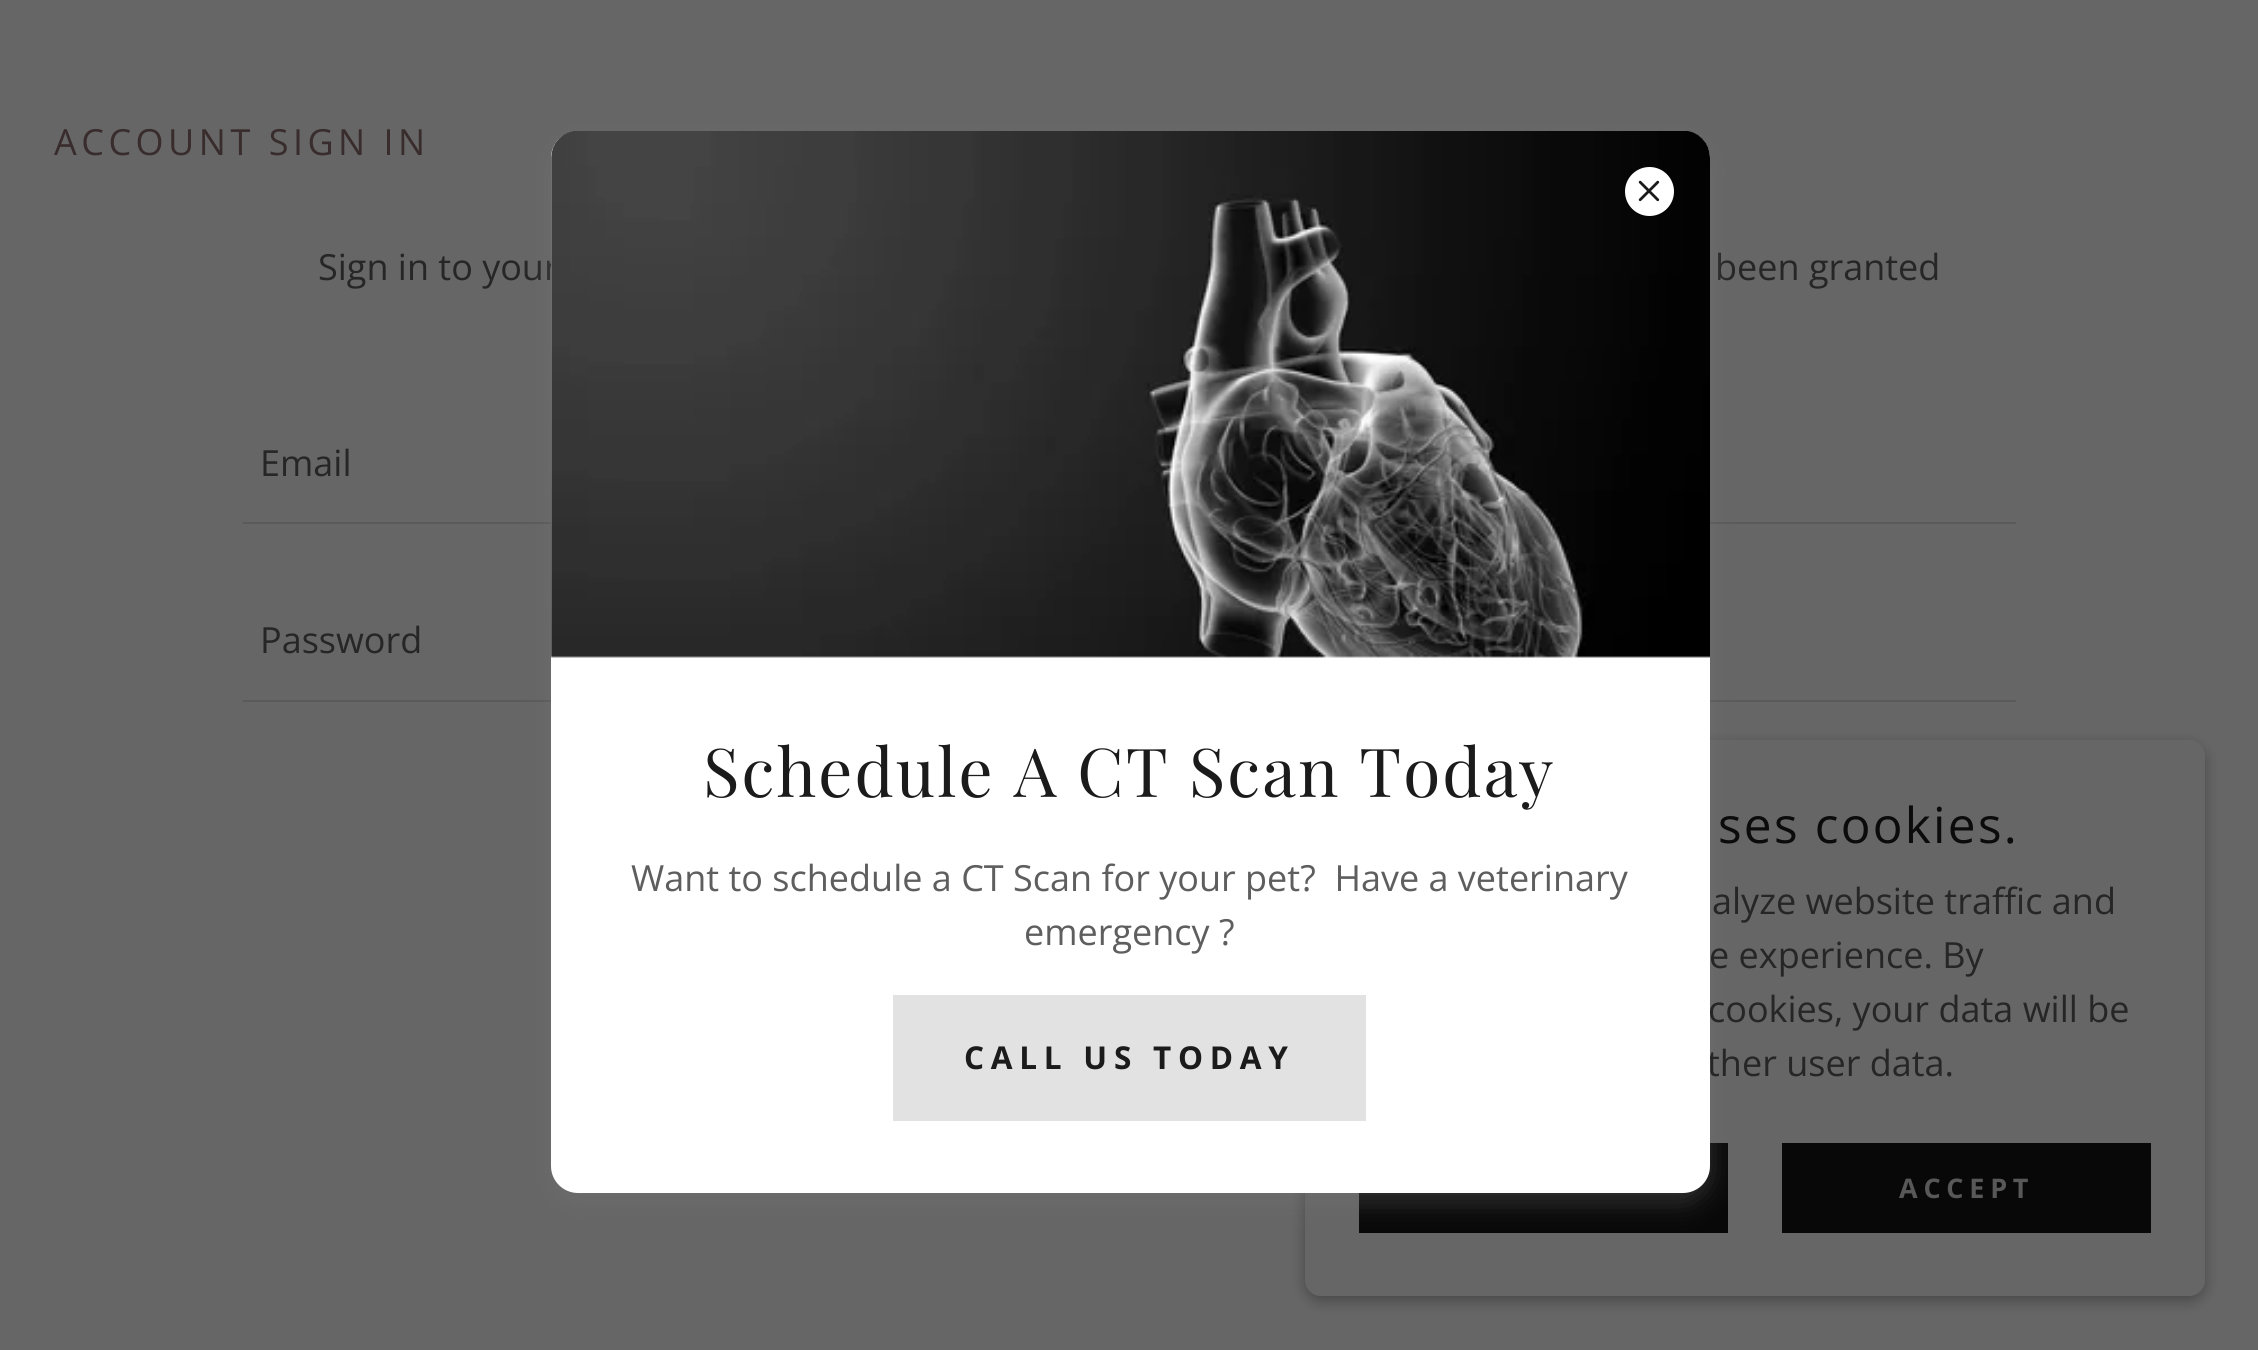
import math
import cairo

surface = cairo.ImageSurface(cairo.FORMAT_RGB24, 2258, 1350)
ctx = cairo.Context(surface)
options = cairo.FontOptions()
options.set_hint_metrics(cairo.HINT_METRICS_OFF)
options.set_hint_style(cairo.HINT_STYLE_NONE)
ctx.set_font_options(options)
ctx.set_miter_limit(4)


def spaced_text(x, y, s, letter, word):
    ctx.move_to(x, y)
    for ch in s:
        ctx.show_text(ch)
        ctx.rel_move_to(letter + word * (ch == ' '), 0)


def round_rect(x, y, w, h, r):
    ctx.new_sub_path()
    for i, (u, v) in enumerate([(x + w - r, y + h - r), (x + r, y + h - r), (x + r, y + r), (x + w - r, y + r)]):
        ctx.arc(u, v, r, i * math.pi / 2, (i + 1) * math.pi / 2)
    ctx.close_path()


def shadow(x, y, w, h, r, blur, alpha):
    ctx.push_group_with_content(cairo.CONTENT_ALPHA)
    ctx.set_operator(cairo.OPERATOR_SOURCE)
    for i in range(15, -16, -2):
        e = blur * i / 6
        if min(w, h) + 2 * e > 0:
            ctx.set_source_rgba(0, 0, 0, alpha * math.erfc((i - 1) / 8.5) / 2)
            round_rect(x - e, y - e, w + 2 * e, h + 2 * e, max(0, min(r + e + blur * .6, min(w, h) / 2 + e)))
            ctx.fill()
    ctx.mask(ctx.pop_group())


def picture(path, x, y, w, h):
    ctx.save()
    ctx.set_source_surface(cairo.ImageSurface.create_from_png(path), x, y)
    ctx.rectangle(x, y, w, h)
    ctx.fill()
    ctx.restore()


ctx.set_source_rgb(0.4, 0.4, 0.4)
ctx.paint()
ctx.select_font_face("Open Sans")
ctx.set_font_size(36)
ctx.set_source_rgb(0.224, 0.173, 0.173)
spaced_text(54, 155, "ACCOUNT SIGN IN", 4.5, 0)
ctx.set_source_rgb(0.149, 0.149, 0.149)
ctx.move_to(318, 280)
ctx.show_text("Sign in to your")
ctx.move_to(1715, 280)
ctx.show_text("been granted")
ctx.set_source_rgb(0.353, 0.353, 0.353)
ctx.rectangle(243, 522, 1773, 2)
ctx.fill()
ctx.set_source_rgb(0.149, 0.149, 0.149)
ctx.move_to(260, 476)
ctx.show_text("Email")
ctx.set_source_rgb(0.353, 0.353, 0.353)
ctx.rectangle(243, 700, 1773, 2)
ctx.fill()
ctx.set_source_rgb(0.149, 0.149, 0.149)
ctx.move_to(260, 653)
ctx.show_text("Password")
ctx.set_source_rgb(0, 0, 0)
shadow(1305, 745, 900, 556, 16, 7, 0.3)
ctx.set_source_rgb(0.4, 0.4, 0.4)
round_rect(1305, 740, 900, 556, 16)
ctx.fill()
ctx.set_source_rgb(0.035, 0.035, 0.035)
ctx.rectangle(1359, 1143, 369, 90)
ctx.fill()
ctx.set_source_rgb(0.459, 0.459, 0.459)
shadow(551, 140, 1159, 1062, 27, 13.5, 0.4)
ctx.set_source_rgb(0.149, 0.149, 0.149)
ctx.move_to(1707, 1076)
ctx.show_text("ther user data.")
ctx.set_source_rgb(1, 1, 1)
round_rect(551, 131, 1159, 1062, 27)
ctx.fill()
picture("img2.png", 551, 131, 1159, 527)
ctx.arc(1649.5, 191.5, 24.5, 0, 2 * math.pi)
ctx.fill()
picture("img1.png", 1638, 180, 22, 22)
ctx.select_font_face("Playfair Display")
ctx.set_font_size(67.5)
ctx.set_source_rgb(0.106, 0.106, 0.106)
spaced_text(703, 797, "Schedule A CT Scan Today", 2.1, 0)
ctx.select_font_face("Open Sans")
ctx.set_font_size(36)
ctx.set_source_rgb(0.369, 0.369, 0.369)
ctx.move_to(631, 891)
ctx.show_text("Want to schedule a CT Scan for your pet?  Have a veterinary")
ctx.move_to(1024, 945)
ctx.show_text("emergency ?")
ctx.set_source_rgb(0.886, 0.886, 0.886)
ctx.rectangle(893, 995, 473, 126)
ctx.fill()
ctx.select_font_face("Open Sans", cairo.FONT_SLANT_NORMAL, cairo.FONT_WEIGHT_BOLD)
ctx.set_font_size(31.5)
ctx.set_source_rgb(0.106, 0.106, 0.106)
spaced_text(964, 1069, "CALL US TODAY", 6.75, 0)
ctx.select_font_face("Open Sans")
ctx.set_font_size(49.5)
ctx.set_source_rgb(0.043, 0.043, 0.043)
spaced_text(1718, 843, "ses cookies.", 2.25, 0)
ctx.set_font_size(36)
ctx.set_source_rgb(0.149, 0.149, 0.149)
ctx.move_to(1712, 914)
ctx.show_text("alyze website traffic and")
ctx.move_to(1709, 968)
ctx.show_text("e experience. By")
ctx.move_to(1708, 1022)
ctx.show_text("cookies, your data will be")
ctx.set_source_rgb(0.035, 0.035, 0.035)
ctx.rectangle(1782, 1143, 369, 90)
ctx.fill()
ctx.select_font_face("Open Sans", cairo.FONT_SLANT_NORMAL, cairo.FONT_WEIGHT_BOLD)
ctx.set_font_size(27)
ctx.set_source_rgb(0.345, 0.345, 0.345)
spaced_text(1899, 1198, "ACCEPT", 5.75, 0)
surface.write_to_png("page.png")
